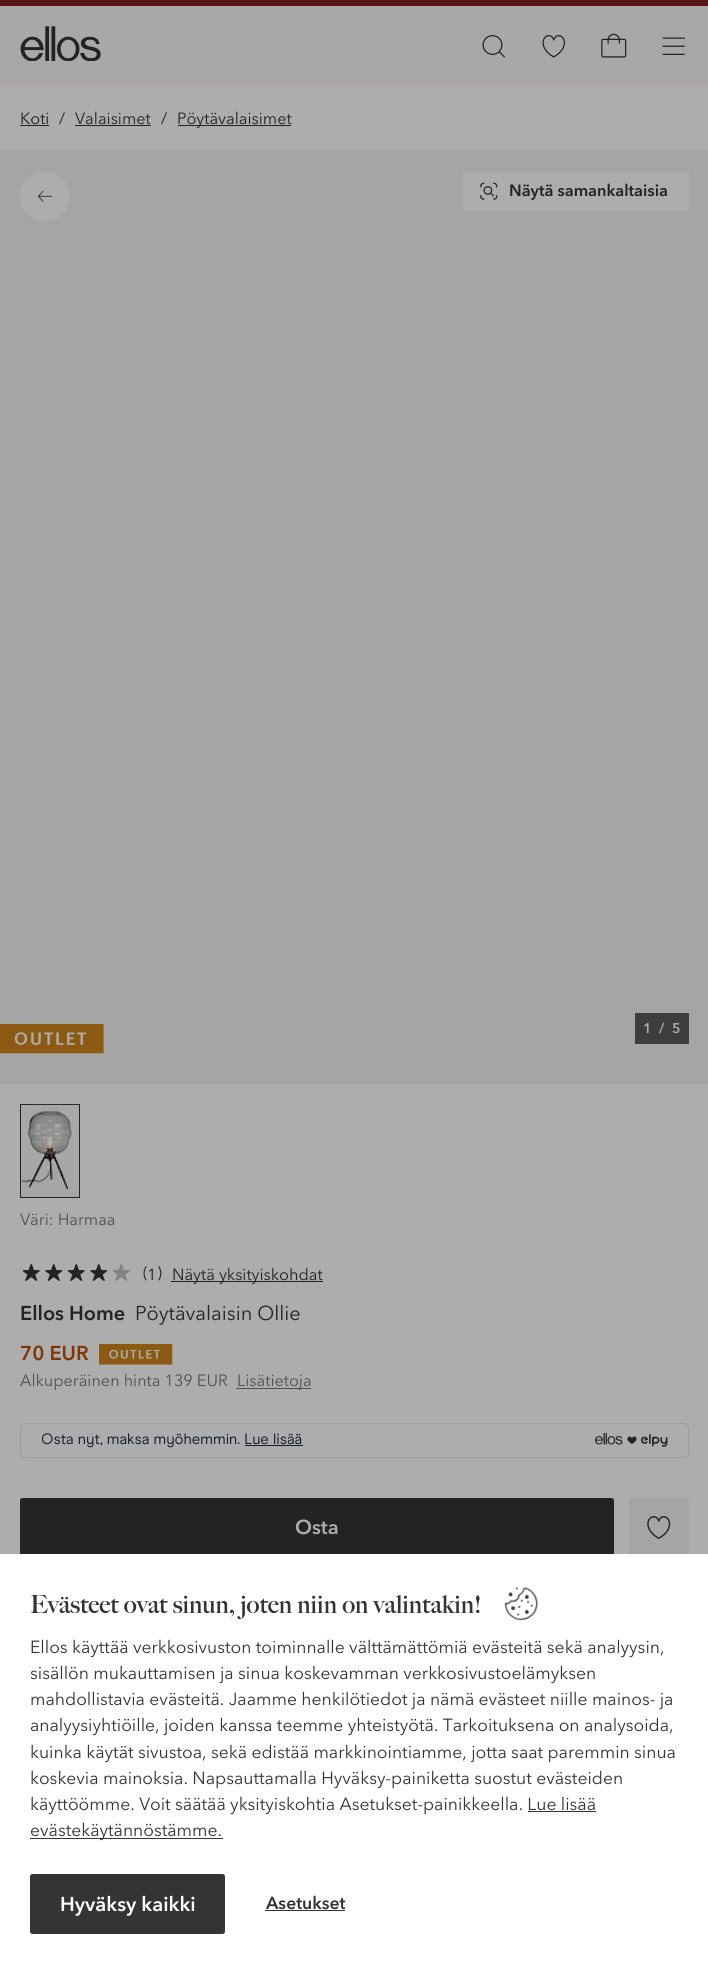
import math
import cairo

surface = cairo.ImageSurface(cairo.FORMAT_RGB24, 708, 1963)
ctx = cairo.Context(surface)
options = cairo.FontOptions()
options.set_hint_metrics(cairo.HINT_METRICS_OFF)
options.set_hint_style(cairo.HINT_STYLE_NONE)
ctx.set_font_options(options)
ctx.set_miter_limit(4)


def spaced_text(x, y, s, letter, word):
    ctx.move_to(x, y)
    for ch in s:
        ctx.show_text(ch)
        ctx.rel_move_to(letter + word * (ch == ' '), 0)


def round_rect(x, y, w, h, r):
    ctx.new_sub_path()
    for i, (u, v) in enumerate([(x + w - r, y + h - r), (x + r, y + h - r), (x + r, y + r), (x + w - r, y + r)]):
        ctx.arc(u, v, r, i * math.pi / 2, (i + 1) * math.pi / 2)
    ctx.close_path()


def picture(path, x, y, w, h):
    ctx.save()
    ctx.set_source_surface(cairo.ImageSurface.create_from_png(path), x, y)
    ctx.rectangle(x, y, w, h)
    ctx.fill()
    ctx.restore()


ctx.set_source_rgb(0.678, 0.678, 0.678)
ctx.paint()
ctx.set_source_rgb(0.345, 0.086, 0.094)
ctx.rectangle(0, 0, 708, 6)
ctx.fill()
ctx.set_source_rgb(0.667, 0.659, 0.651)
ctx.rectangle(0, 6, 708, 80)
ctx.fill()
picture("img1.png", 20, 26, 81, 35)
picture("img2.png", 482, 35, 23, 23)
picture("img3.png", 542, 35, 23, 23)
picture("img4.png", 601, 33, 26, 25)
picture("img5.png", 662, 37, 23, 18)
ctx.select_font_face("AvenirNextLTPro")
ctx.set_font_size(16.25)
ctx.set_source_rgb(0.137, 0.137, 0.137)
ctx.move_to(20, 124)
ctx.show_text("Koti")
ctx.rectangle(20, 125, 29, 1)
ctx.fill()
ctx.move_to(59, 124)
ctx.show_text("/")
ctx.move_to(75, 124)
ctx.show_text("Valaisimet")
ctx.rectangle(75, 125, 76, 1)
ctx.fill()
ctx.move_to(161, 124)
ctx.show_text("/")
ctx.rectangle(178, 125, 113, 1)
ctx.fill()
ctx.move_to(177, 124)
ctx.show_text("Pöytävalaisimet")
ctx.set_source_rgb(0.647, 0.647, 0.647)
ctx.rectangle(0, 151, 708, 933)
ctx.fill()
ctx.set_source_rgb(0.678, 0.678, 0.678)
round_rect(21, 173, 48, 47, 23.5)
ctx.fill()
ctx.arc(45, 196, 24.5, 0, 2 * math.pi)
ctx.set_line_width(1)
ctx.stroke()
picture("img6.png", 38, 190, 14, 12)
round_rect(464, 173, 224, 37, 1)
ctx.fill()
round_rect(463.5, 171.5, 225, 39, 2)
ctx.stroke()
picture("img7.png", 480, 182, 18, 18)
ctx.select_font_face("AvenirNextLTPro", cairo.FONT_SLANT_NORMAL, cairo.FONT_WEIGHT_BOLD)
ctx.set_source_rgb(0.137, 0.137, 0.137)
ctx.move_to(509, 196)
ctx.show_text("Näytä samankaltaisia")
picture("img8.png", 0, 1024, 104, 30)
ctx.set_source_rgb(0.239, 0.239, 0.239)
ctx.rectangle(635, 1013, 54, 31)
ctx.fill()
ctx.set_font_size(14)
ctx.set_source_rgb(0.678, 0.678, 0.678)
spaced_text(643, 1033, "1 / 5", 2, 0)
ctx.set_source_rgb(0.647, 0.647, 0.647)
ctx.rectangle(20.5, 1104.5, 59, 93)
ctx.fill_preserve()
ctx.set_source_rgb(0.137, 0.137, 0.137)
ctx.stroke()
picture("img9.png", 21, 1104, 58, 87)
ctx.select_font_face("AvenirNextLTPro")
ctx.set_font_size(16.25)
ctx.set_source_rgb(0.314, 0.314, 0.314)
ctx.move_to(20, 1225)
ctx.show_text("Väri: Harmaa")
picture("img10.png", 22, 1264, 18, 17)
picture("img11.png", 45, 1264, 18, 17)
picture("img10.png", 67, 1264, 18, 17)
picture("img11.png", 90, 1264, 18, 17)
picture("img10.png", 112, 1264, 18, 17)
picture("img12.png", 22, 1264, 18, 17)
picture("img13.png", 45, 1264, 18, 17)
picture("img12.png", 67, 1264, 18, 17)
picture("img13.png", 90, 1264, 18, 17)
ctx.set_source_rgb(0.137, 0.137, 0.137)
ctx.move_to(143, 1278)
ctx.show_text("(")
ctx.move_to(147, 1280)
ctx.show_text("1")
ctx.move_to(157, 1278)
ctx.show_text(")")
ctx.rectangle(171, 1281, 152, 1)
ctx.fill()
ctx.move_to(172, 1280)
ctx.show_text("Näytä yksityiskohdat")
ctx.select_font_face("AvenirNextLTPro", cairo.FONT_SLANT_NORMAL, cairo.FONT_WEIGHT_BOLD)
ctx.set_font_size(20)
ctx.move_to(20, 1320)
ctx.show_text("Ellos Home")
ctx.select_font_face("AvenirNextLTPro")
ctx.move_to(135, 1320)
ctx.show_text("Pöytävalaisin Ollie")
ctx.select_font_face("AvenirNextLTPro", cairo.FONT_SLANT_NORMAL, cairo.FONT_WEIGHT_BOLD)
ctx.set_source_rgb(0.502, 0.212, 0.016)
ctx.move_to(20, 1360)
ctx.show_text("70 EUR")
picture("img14.png", 99, 1344, 74, 21)
ctx.select_font_face("AvenirNextLTPro")
ctx.set_font_size(16.25)
ctx.set_source_rgb(0.314, 0.314, 0.314)
ctx.move_to(20, 1386)
ctx.show_text("Alkuperäinen hinta 139 EUR")
ctx.rectangle(236, 1388, 75, 1)
ctx.fill()
ctx.move_to(237, 1386)
ctx.show_text("Lisätietoja")
round_rect(20.5, 1423.5, 668, 34, 4.5)
ctx.set_source_rgb(0.612, 0.62, 0.643)
ctx.stroke()
ctx.select_font_face("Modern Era")
ctx.set_font_size(15)
ctx.set_source_rgb(0.078, 0.118, 0.161)
ctx.move_to(41, 1444)
ctx.show_text("Osta nyt, maksa myöhemmin. Lue lisää")
ctx.rectangle(245, 1445, 58, 1)
ctx.fill()
picture("img15.png", 595, 1433, 73, 14)
ctx.set_source_rgb(0.137, 0.137, 0.137)
round_rect(21, 1499, 592, 57, 1)
ctx.fill()
round_rect(20.5, 1498.5, 593, 59, 2)
ctx.stroke()
ctx.select_font_face("AvenirNextLTPro", cairo.FONT_SLANT_NORMAL, cairo.FONT_WEIGHT_BOLD)
ctx.set_font_size(20)
ctx.set_source_rgb(0.678, 0.678, 0.678)
ctx.move_to(295, 1534)
ctx.show_text("Osta")
ctx.set_source_rgb(0.647, 0.647, 0.647)
round_rect(629, 1498, 60, 60, 2.5)
ctx.fill()
picture("img16.png", 647, 1516, 24, 23)
ctx.set_source_rgb(1, 1, 1)
ctx.rectangle(0, 1554, 708, 409)
ctx.fill()
ctx.select_font_face("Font", cairo.FONT_SLANT_NORMAL, cairo.FONT_WEIGHT_BOLD)
ctx.set_font_size(25)
ctx.set_source_rgb(0.204, 0.204, 0.204)
ctx.move_to(30, 1613)
ctx.show_text("Evästeet ovat sinun, joten niin on valintakin!")
picture("img17.png", 504, 1586, 35, 35)
ctx.select_font_face("AvenirNextLTPro")
ctx.set_font_size(17.5)
ctx.move_to(30, 1653)
ctx.show_text("Ellos käyttää verkkosivuston toiminnalle välttämättömiä evästeitä sekä analyysin,")
ctx.move_to(30, 1679)
ctx.show_text("sisällön mukauttamisen ja sinua koskevamman verkkosivustoelämyksen")
ctx.move_to(30, 1705)
ctx.show_text("mahdollistavia evästeitä. Jaamme henkilötiedot ja nämä evästeet niille mainos- ja")
ctx.move_to(30, 1731)
ctx.show_text("analyysiyhtiöille, joiden kanssa teemme yhteistyötä. Tarkoituksena on analysoida,")
ctx.move_to(30, 1758)
ctx.show_text("kuinka käytät sivustoa, sekä edistää markkinointiamme, jotta saat paremmin sinua")
ctx.move_to(30, 1784)
ctx.show_text("koskevia mainoksia. Napsauttamalla Hyväksy-painiketta suostut evästeiden")
ctx.move_to(30, 1810)
ctx.show_text("käyttöömme. Voit säätää yksityiskohtia Asetukset-painikkeella. Lue lisää")
ctx.rectangle(30, 1838, 193, 1)
ctx.fill()
ctx.move_to(30, 1836)
ctx.show_text("evästekäytännöstämme.")
ctx.rectangle(528, 1811, 68, 1)
ctx.fill()
round_rect(30, 1874, 195, 60, 2.5)
ctx.fill()
ctx.select_font_face("AvenirNextLTPro", cairo.FONT_SLANT_NORMAL, cairo.FONT_WEIGHT_BOLD)
ctx.set_font_size(20)
ctx.set_source_rgb(1, 1, 1)
ctx.move_to(60, 1911)
ctx.show_text("Hyväksy kaikki")
ctx.set_font_size(17.5)
ctx.set_source_rgb(0.204, 0.204, 0.204)
ctx.move_to(266, 1909)
ctx.show_text("Asetukset")
ctx.rectangle(265, 1910, 80, 1)
ctx.fill()
surface.write_to_png("page.png")
